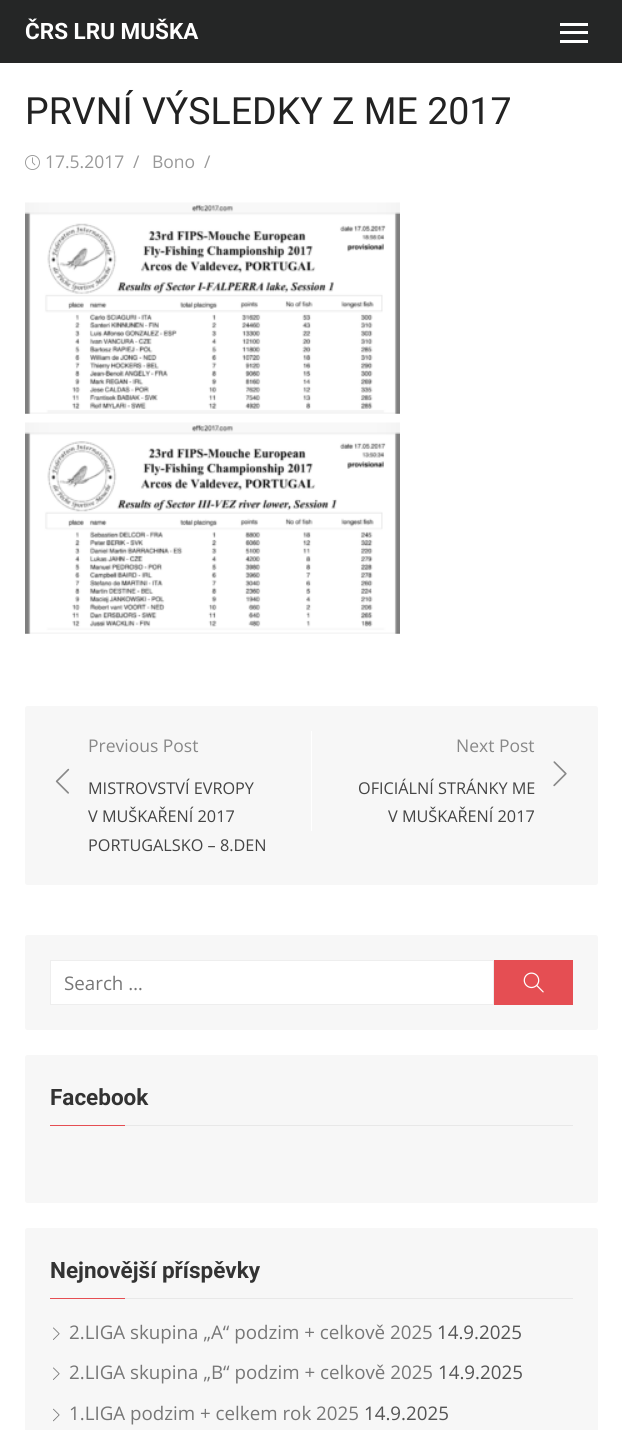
import math
import cairo

surface = cairo.ImageSurface(cairo.FORMAT_RGB24, 622, 1430)
ctx = cairo.Context(surface)
options = cairo.FontOptions()
options.set_hint_metrics(cairo.HINT_METRICS_OFF)
options.set_hint_style(cairo.HINT_STYLE_NONE)
ctx.set_font_options(options)
ctx.set_miter_limit(4)


def round_rect(x, y, w, h, r):
    ctx.new_sub_path()
    for i, (u, v) in enumerate([(x + w - r, y + h - r), (x + r, y + h - r), (x + r, y + r), (x + w - r, y + r)]):
        ctx.arc(u, v, r, i * math.pi / 2, (i + 1) * math.pi / 2)
    ctx.close_path()


def picture(path, x, y, w, h):
    ctx.save()
    ctx.set_source_surface(cairo.ImageSurface.create_from_png(path), x, y)
    ctx.rectangle(x, y, w, h)
    ctx.fill()
    ctx.restore()


ctx.set_source_rgb(1, 1, 1)
ctx.paint()
ctx.set_source_rgb(0.145, 0.149, 0.149)
ctx.rectangle(0, 0, 622, 63)
ctx.fill()
ctx.select_font_face("Roboto", cairo.FONT_SLANT_NORMAL, cairo.FONT_WEIGHT_BOLD)
ctx.set_font_size(22.5)
ctx.set_source_rgb(1, 1, 1)
ctx.move_to(25, 39)
ctx.show_text("ČRS LRU MUŠKA")
ctx.rectangle(560, 31, 28, 3)
ctx.fill()
ctx.rectangle(560, 23, 28, 3)
ctx.fill()
ctx.rectangle(560, 40, 28, 3)
ctx.fill()
ctx.select_font_face("Roboto")
ctx.set_font_size(37.5)
ctx.set_source_rgb(0.133, 0.133, 0.133)
ctx.move_to(25, 124)
ctx.show_text("PRVNÍ VÝSLEDKY Z ME 2017")
picture("img1.png", 25, 155, 15, 15)
ctx.select_font_face("Open Sans")
ctx.set_font_size(17.5)
ctx.set_source_rgb(0.6, 0.6, 0.6)
ctx.move_to(45, 168)
ctx.show_text("17.5.2017")
ctx.move_to(133, 168)
ctx.show_text("/")
ctx.move_to(152, 168)
ctx.show_text("Bono")
ctx.move_to(204, 168)
ctx.show_text("/")
picture("img2.png", 25, 202, 375, 212)
picture("img3.png", 25, 422, 375, 212)
ctx.set_source_rgb(0.965, 0.965, 0.965)
round_rect(25, 706, 573, 179, 2.5)
ctx.fill()
ctx.set_source_rgb(0.533, 0.533, 0.533)
ctx.move_to(88, 752)
ctx.show_text("Previous Post")
picture("img4.png", 55, 768, 15, 26)
ctx.set_font_size(16.25)
ctx.set_source_rgb(0.267, 0.267, 0.267)
ctx.move_to(88, 794)
ctx.show_text("MISTROVSTVÍ EVROPY")
ctx.move_to(88, 822)
ctx.show_text("V MUŠKAŘENÍ 2017")
ctx.move_to(88, 851)
ctx.show_text("PORTUGALSKO – 8.DEN")
ctx.set_source_rgb(1, 1, 1)
ctx.rectangle(311, 731, 1, 100)
ctx.fill()
ctx.set_font_size(17.5)
ctx.set_source_rgb(0.533, 0.533, 0.533)
ctx.move_to(456, 752)
ctx.show_text("Next Post")
picture("img5.png", 553, 761, 14, 26)
ctx.set_font_size(16.25)
ctx.set_source_rgb(0.267, 0.267, 0.267)
ctx.move_to(358, 794)
ctx.show_text("OFICIÁLNÍ STRÁNKY ME")
ctx.move_to(388, 822)
ctx.show_text("V MUŠKAŘENÍ 2017")
ctx.set_source_rgb(0.965, 0.965, 0.965)
round_rect(25, 935, 573, 95, 2.5)
ctx.fill()
ctx.set_source_rgb(1, 1, 1)
ctx.rectangle(50.5, 960.5, 443, 44)
ctx.fill_preserve()
ctx.set_source_rgb(0.933, 0.933, 0.933)
ctx.set_line_width(1)
ctx.stroke()
ctx.set_font_size(18.75)
ctx.set_source_rgb(0.467, 0.467, 0.467)
ctx.move_to(64, 990)
ctx.show_text("Search …")
ctx.set_source_rgb(0.898, 0.306, 0.325)
ctx.rectangle(494, 960, 79, 45)
ctx.fill()
picture("img6.png", 523, 972, 21, 21)
ctx.set_source_rgb(0.965, 0.965, 0.965)
round_rect(25, 1055, 573, 148, 2.5)
ctx.fill()
ctx.set_source_rgb(0.91, 0.91, 0.91)
ctx.rectangle(125, 1125, 448, 1)
ctx.fill()
ctx.select_font_face("Roboto", cairo.FONT_SLANT_NORMAL, cairo.FONT_WEIGHT_BOLD)
ctx.set_font_size(22.5)
ctx.set_source_rgb(0.2, 0.2, 0.2)
ctx.move_to(50, 1105)
ctx.show_text("Facebook")
ctx.set_source_rgb(0.898, 0.306, 0.325)
ctx.rectangle(50, 1125, 75, 1)
ctx.fill()
ctx.set_source_rgb(0.965, 0.965, 0.965)
round_rect(25, 1228, 573, 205, 2.5)
ctx.fill()
ctx.set_source_rgb(0.91, 0.91, 0.91)
ctx.rectangle(125, 1298, 448, 1)
ctx.fill()
ctx.set_source_rgb(0.2, 0.2, 0.2)
ctx.move_to(50, 1278)
ctx.show_text("Nejnovější příspěvky")
ctx.set_source_rgb(0.898, 0.306, 0.325)
ctx.rectangle(50, 1298, 75, 1)
ctx.fill()
picture("img7.png", 53, 1327, 7, 13)
ctx.select_font_face("Open Sans")
ctx.set_font_size(18.75)
ctx.set_source_rgb(0.467, 0.467, 0.467)
ctx.move_to(69, 1339)
ctx.show_text("2.LIGA skupina „A“ podzim + celkově 2025")
ctx.set_source_rgb(0.333, 0.333, 0.333)
ctx.move_to(437, 1339)
ctx.show_text("14.9.2025")
picture("img7.png", 53, 1367, 7, 13)
ctx.set_source_rgb(0.467, 0.467, 0.467)
ctx.move_to(69, 1379)
ctx.show_text("2.LIGA skupina „B“ podzim + celkově 2025")
ctx.set_source_rgb(0.333, 0.333, 0.333)
ctx.move_to(438, 1379)
ctx.show_text("14.9.2025")
picture("img8.png", 53, 1408, 7, 14)
ctx.set_source_rgb(0.467, 0.467, 0.467)
ctx.move_to(69, 1420)
ctx.show_text("1.LIGA podzim + celkem rok 2025")
ctx.set_source_rgb(0.333, 0.333, 0.333)
ctx.move_to(364, 1420)
ctx.show_text("14.9.2025")
surface.write_to_png("page.png")
